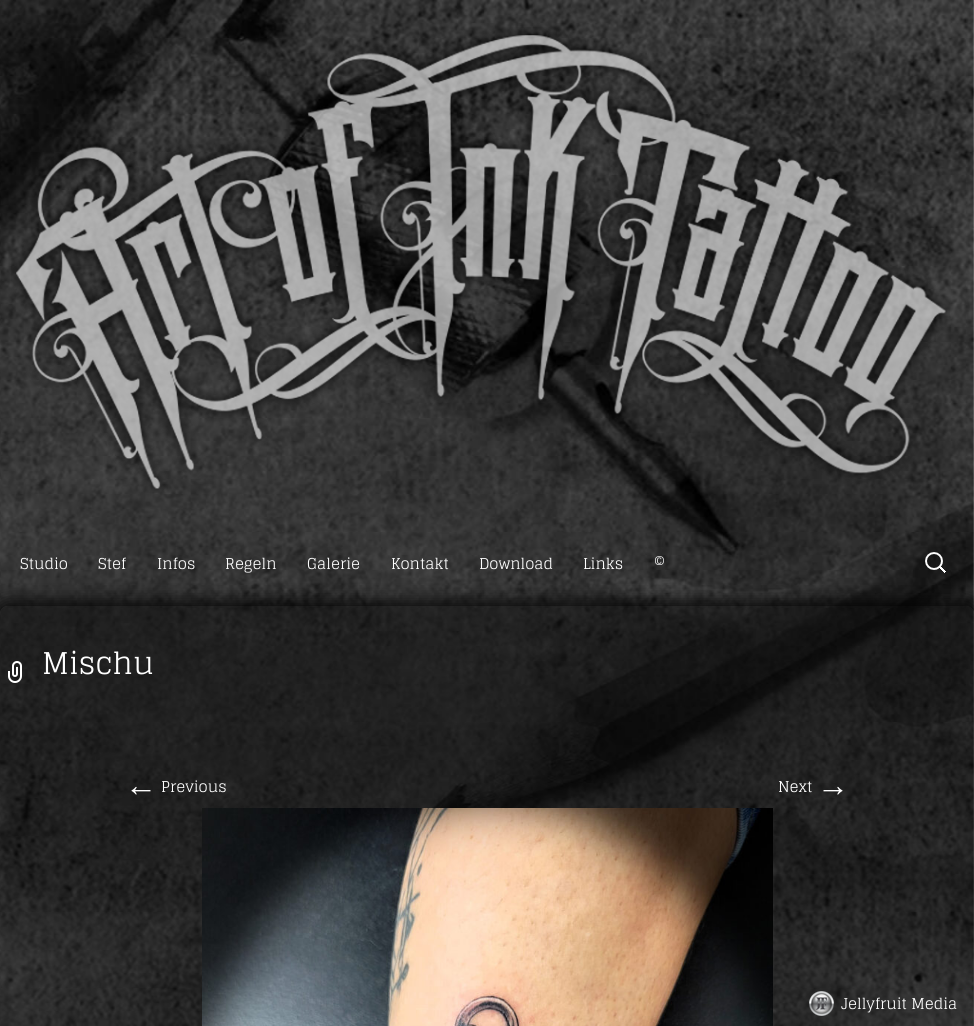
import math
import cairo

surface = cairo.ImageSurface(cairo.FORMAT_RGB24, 974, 1026)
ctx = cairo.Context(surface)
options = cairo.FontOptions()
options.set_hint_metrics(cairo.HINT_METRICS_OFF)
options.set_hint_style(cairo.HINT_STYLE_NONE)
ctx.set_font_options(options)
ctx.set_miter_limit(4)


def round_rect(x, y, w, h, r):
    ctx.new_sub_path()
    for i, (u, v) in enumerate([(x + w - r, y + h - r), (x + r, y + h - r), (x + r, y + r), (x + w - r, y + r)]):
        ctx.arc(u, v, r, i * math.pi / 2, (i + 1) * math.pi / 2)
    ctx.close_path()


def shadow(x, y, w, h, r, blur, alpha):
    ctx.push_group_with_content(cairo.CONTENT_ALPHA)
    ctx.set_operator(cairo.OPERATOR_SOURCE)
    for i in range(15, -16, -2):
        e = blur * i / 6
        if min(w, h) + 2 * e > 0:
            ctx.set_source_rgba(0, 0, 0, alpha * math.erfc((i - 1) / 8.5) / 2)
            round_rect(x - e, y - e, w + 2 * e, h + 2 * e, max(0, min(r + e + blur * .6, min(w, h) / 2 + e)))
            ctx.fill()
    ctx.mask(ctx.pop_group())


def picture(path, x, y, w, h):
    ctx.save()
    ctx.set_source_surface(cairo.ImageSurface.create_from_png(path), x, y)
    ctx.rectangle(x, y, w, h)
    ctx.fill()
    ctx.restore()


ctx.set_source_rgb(1, 1, 1)
ctx.paint()
picture("img1.png", 0, 0, 974, 1026)
picture("img2.png", 11, 27, 939, 466)
ctx.select_font_face("Glegoo")
ctx.set_font_size(15)
ctx.set_source_rgb(1, 1, 1)
ctx.move_to(20, 569)
ctx.show_text("Studio")
ctx.move_to(98, 569)
ctx.show_text("Stef")
ctx.move_to(157, 569)
ctx.show_text("Infos")
ctx.move_to(225, 569)
ctx.show_text("Regeln")
ctx.move_to(307, 569)
ctx.show_text("Galerie")
ctx.move_to(391, 569)
ctx.show_text("Kontakt")
ctx.move_to(479, 569)
ctx.show_text("Download")
ctx.move_to(583, 569)
ctx.show_text("Links")
ctx.move_to(654, 569)
ctx.show_text("©")
picture("img3.png", 925, 552, 21, 21)
ctx.save()
ctx.set_fill_rule(cairo.FILL_RULE_EVEN_ODD)
ctx.new_path()
ctx.move_to(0, 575)
ctx.line_to(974, 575)
ctx.line_to(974, 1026)
ctx.line_to(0, 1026)
ctx.close_path()
ctx.move_to(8, 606)
ctx.line_to(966, 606)
ctx.curve_to(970.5, 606, 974, 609.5, 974, 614)
ctx.line_to(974, 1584)
ctx.curve_to(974, 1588.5, 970.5, 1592, 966, 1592)
ctx.line_to(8, 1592)
ctx.curve_to(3.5, 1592, 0, 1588.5, 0, 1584)
ctx.line_to(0, 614)
ctx.curve_to(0, 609.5, 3.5, 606, 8, 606)
ctx.close_path()
ctx.clip()
ctx.set_source_rgb(0, 0, 0)
shadow(-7, 599, 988, 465, 15, 7.5, 0.75)
ctx.restore()
ctx.set_source_rgba(0, 0, 0, 0.4)
round_rect(0, 606, 974, 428, 8)
ctx.fill()
picture("img4.png", 8, 661, 14, 22)
ctx.set_font_size(30)
ctx.set_source_rgb(1, 1, 1)
ctx.move_to(42, 674)
ctx.show_text("Mischu")
ctx.select_font_face("Liberation Sans")
ctx.set_font_size(32)
ctx.move_to(125, 796)
ctx.show_text("←")
ctx.select_font_face("Glegoo")
ctx.set_font_size(15)
ctx.move_to(161, 792)
ctx.show_text("Previous")
ctx.move_to(778, 792)
ctx.show_text("Next")
ctx.select_font_face("Liberation Sans")
ctx.set_font_size(32)
ctx.move_to(817, 796)
ctx.show_text("→")
picture("img5.png", 202, 808, 571, 218)
picture("img6.png", 809, 991, 25, 25)
ctx.select_font_face("Glegoo")
ctx.set_font_size(15)
ctx.move_to(841, 1009)
ctx.show_text("Jellyfruit Media")
surface.write_to_png("page.png")
